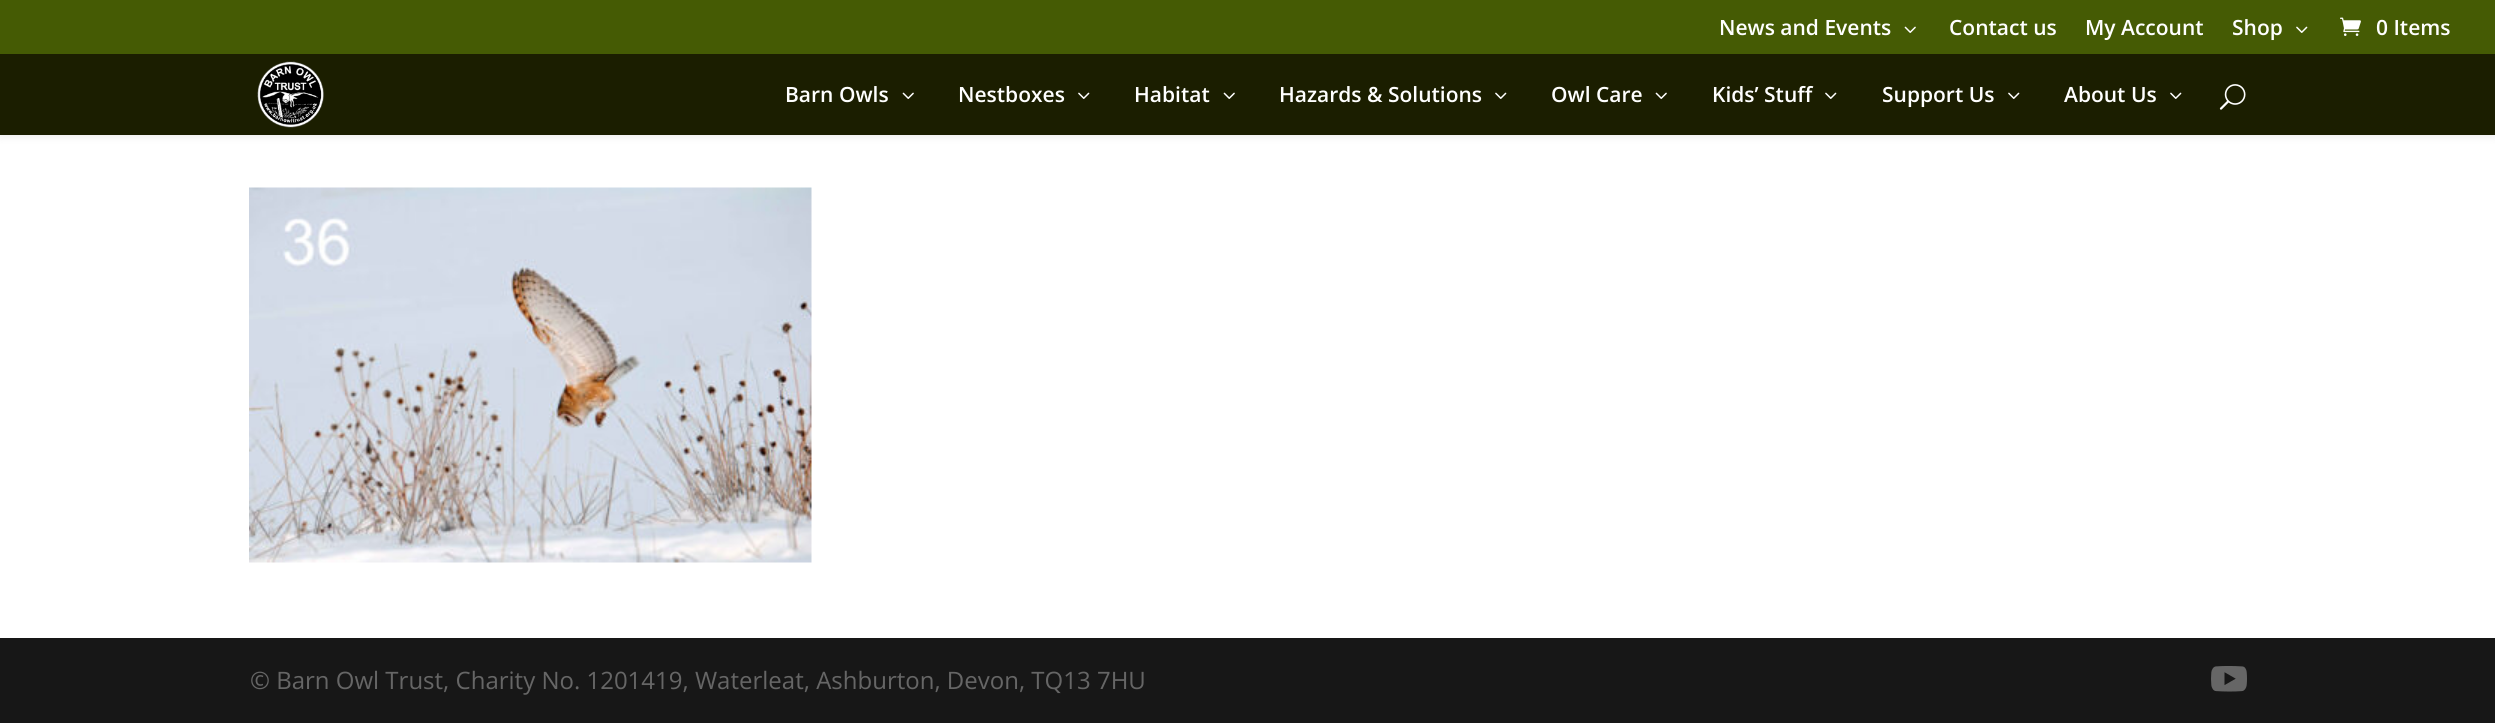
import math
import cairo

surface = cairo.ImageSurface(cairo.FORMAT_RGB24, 2495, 723)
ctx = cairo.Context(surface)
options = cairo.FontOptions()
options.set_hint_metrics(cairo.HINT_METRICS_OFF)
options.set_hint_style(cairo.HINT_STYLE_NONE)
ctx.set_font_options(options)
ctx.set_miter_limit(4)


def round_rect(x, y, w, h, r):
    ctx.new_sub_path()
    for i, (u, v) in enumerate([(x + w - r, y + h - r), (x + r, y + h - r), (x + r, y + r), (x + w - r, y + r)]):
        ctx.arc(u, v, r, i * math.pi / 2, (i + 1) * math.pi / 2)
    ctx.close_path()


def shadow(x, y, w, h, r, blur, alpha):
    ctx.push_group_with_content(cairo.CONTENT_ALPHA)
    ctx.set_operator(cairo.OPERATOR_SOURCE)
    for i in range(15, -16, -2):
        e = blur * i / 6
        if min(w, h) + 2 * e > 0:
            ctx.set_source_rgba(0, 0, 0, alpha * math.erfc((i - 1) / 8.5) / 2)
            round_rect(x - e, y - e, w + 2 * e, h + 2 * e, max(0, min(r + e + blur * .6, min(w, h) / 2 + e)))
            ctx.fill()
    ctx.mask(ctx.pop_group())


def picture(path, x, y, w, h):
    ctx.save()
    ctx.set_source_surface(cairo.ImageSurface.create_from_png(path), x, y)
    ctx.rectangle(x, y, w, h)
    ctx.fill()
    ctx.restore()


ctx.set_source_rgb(1, 1, 1)
ctx.paint()
ctx.set_source_rgb(0, 0, 0)
shadow(0, 54, 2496, 81, 0, 5, 0.1)
ctx.set_source_rgb(0.271, 0.357, 0.016)
ctx.rectangle(0, 0, 2495, 54)
ctx.fill()
ctx.select_font_face("Open Sans SemiBold")
ctx.set_font_size(21)
ctx.set_source_rgb(1, 1, 1)
ctx.move_to(1719, 35)
ctx.show_text("News and Events")
picture("img1.png", 1904, 26, 12, 7)
ctx.move_to(1949, 35)
ctx.show_text("Contact us")
ctx.move_to(2085, 35)
ctx.show_text("My Account")
ctx.move_to(2232, 35)
ctx.show_text("Shop")
picture("img2.png", 2296, 26, 12, 7)
picture("img3.png", 2340, 17, 21, 19)
ctx.move_to(2376, 35)
ctx.show_text("0 Items")
ctx.set_source_rgb(0.106, 0.118, 0)
ctx.rectangle(0, 54, 2495, 81)
ctx.fill()
picture("img4.png", 257, 61, 67, 67)
ctx.set_source_rgb(1, 1, 1)
ctx.move_to(785, 102)
ctx.show_text("Barn Owls")
picture("img5.png", 902, 92, 12, 7)
ctx.move_to(958, 102)
ctx.show_text("Nestboxes")
picture("img6.png", 1078, 92, 12, 7)
ctx.move_to(1134, 102)
ctx.show_text("Habitat")
picture("img5.png", 1223, 92, 12, 7)
ctx.move_to(1279, 102)
ctx.show_text("Hazards & Solutions")
picture("img6.png", 1495, 92, 12, 7)
ctx.move_to(1551, 102)
ctx.show_text("Owl Care")
picture("img5.png", 1655, 92, 12, 7)
ctx.move_to(1712, 102)
ctx.show_text("Kids’ Stuff")
picture("img6.png", 1825, 92, 12, 7)
ctx.move_to(1882, 102)
ctx.show_text("Support Us")
picture("img6.png", 2008, 92, 12, 7)
ctx.move_to(2064, 102)
ctx.show_text("About Us")
picture("img6.png", 2170, 92, 12, 7)
picture("img7.png", 2219, 84, 27, 26)
picture("img8.png", 249, 187, 563, 376)
ctx.set_source_rgb(0.09, 0.09, 0.09)
ctx.rectangle(0, 638, 2495, 85)
ctx.fill()
ctx.select_font_face("Open Sans")
ctx.set_font_size(24)
ctx.set_source_rgb(0.4, 0.4, 0.4)
ctx.move_to(250, 689)
ctx.show_text("© Barn Owl Trust, Charity No. 1201419, Waterleat, Ashburton, Devon, TQ13 7HU")
picture("img9.png", 2211, 666, 36, 26)
surface.write_to_png("page.png")
